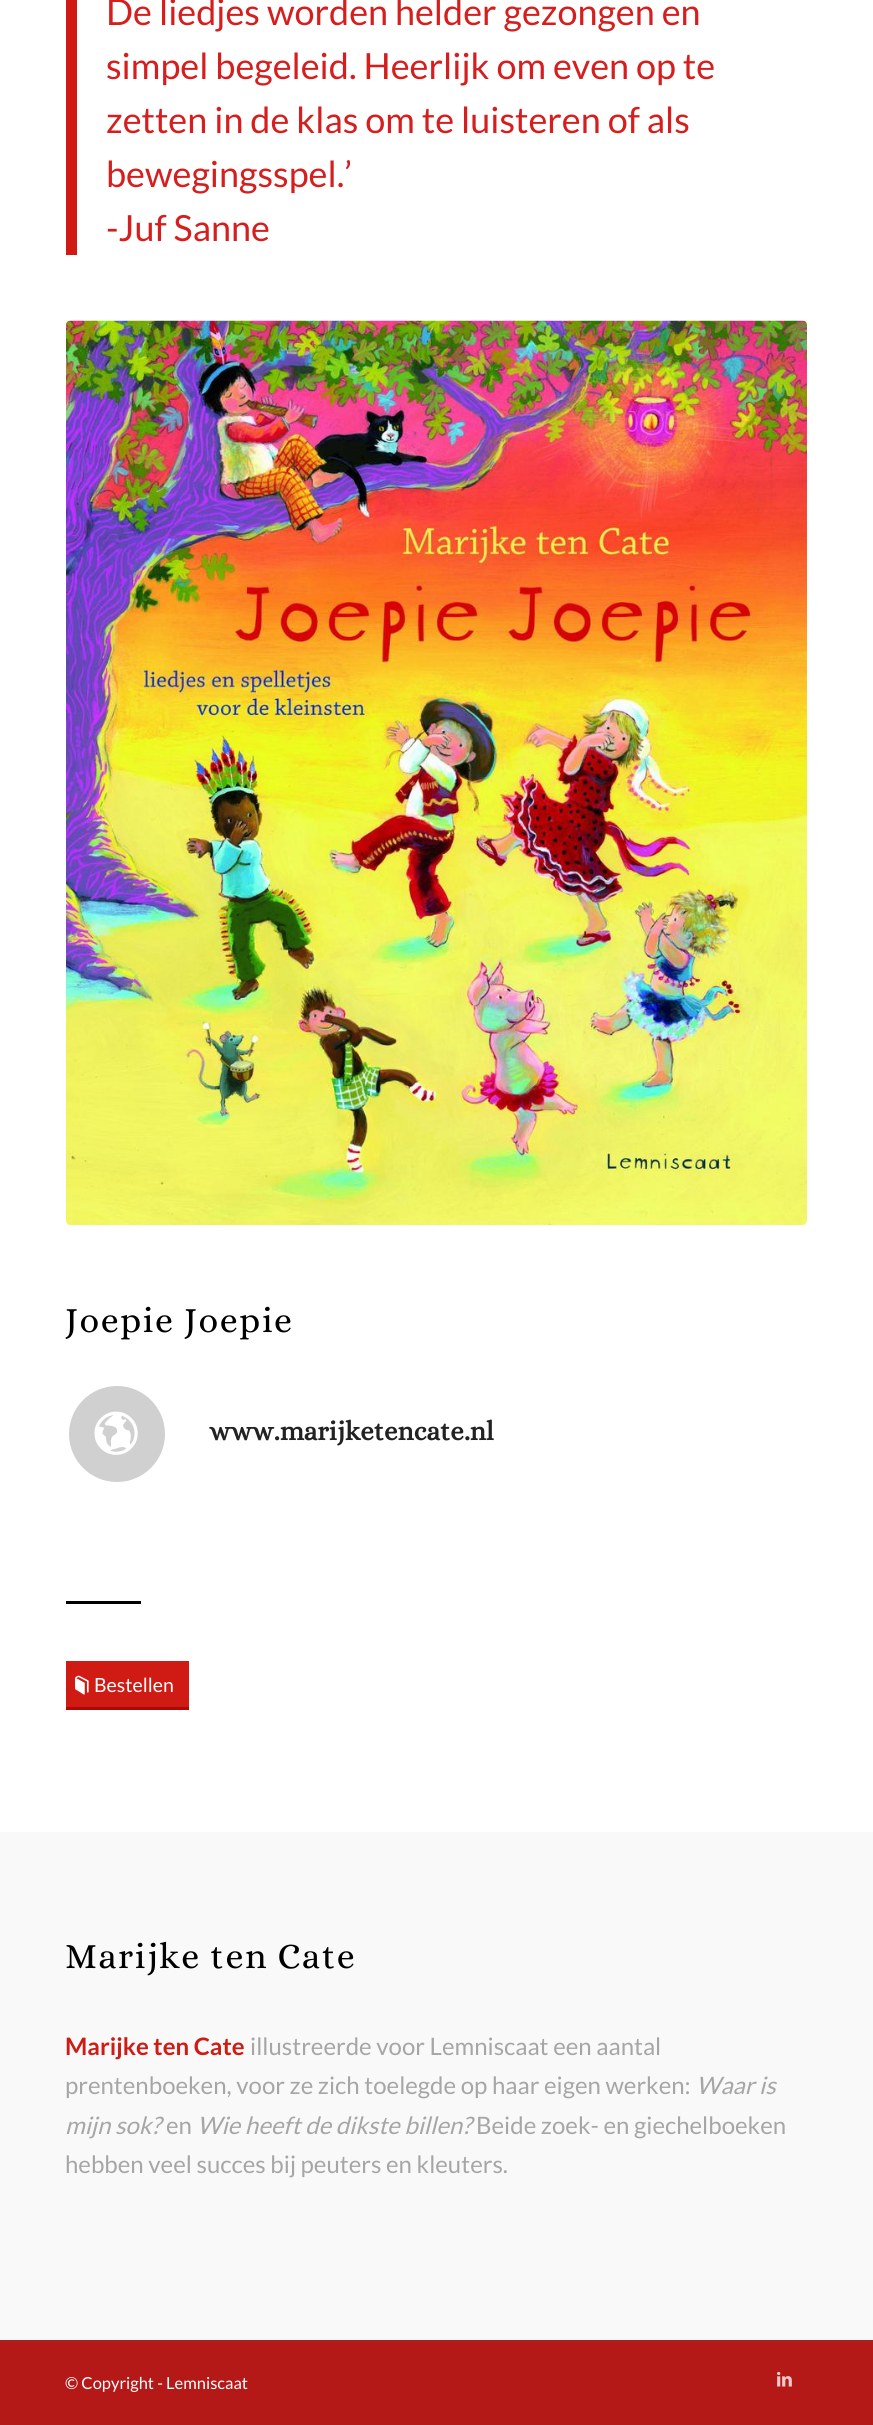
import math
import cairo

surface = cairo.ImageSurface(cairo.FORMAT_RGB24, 873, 2425)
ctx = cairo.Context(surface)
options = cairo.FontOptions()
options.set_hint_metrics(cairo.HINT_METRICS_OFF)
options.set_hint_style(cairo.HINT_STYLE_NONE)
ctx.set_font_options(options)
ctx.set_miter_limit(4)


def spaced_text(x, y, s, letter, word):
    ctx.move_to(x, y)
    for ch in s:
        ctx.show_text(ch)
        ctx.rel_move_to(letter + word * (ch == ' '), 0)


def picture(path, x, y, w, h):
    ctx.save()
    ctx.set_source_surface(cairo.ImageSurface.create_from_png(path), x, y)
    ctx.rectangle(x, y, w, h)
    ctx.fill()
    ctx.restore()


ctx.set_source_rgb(1, 1, 1)
ctx.paint()
ctx.set_source_rgb(0.812, 0.106, 0.082)
ctx.rectangle(66, 0, 11, 255)
ctx.fill()
ctx.select_font_face("Lato")
ctx.set_font_size(36)
ctx.set_source_rgb(0.839, 0.118, 0.118)
ctx.move_to(106, 25)
ctx.show_text("De liedjes worden helder gezongen en")
ctx.move_to(106, 79)
ctx.show_text("simpel begeleid. Heerlijk om even op te")
ctx.move_to(106, 133)
ctx.show_text("zetten in de klas om te luisteren of als")
ctx.move_to(106, 187)
ctx.show_text("bewegingsspel.’")
ctx.move_to(106, 241)
ctx.show_text("-Juf Sanne")
picture("img1.png", 66, 320, 741, 905)
ctx.select_font_face("Alice")
ctx.set_source_rgb(0, 0, 0)
spaced_text(65, 1332, "Joepie Joepie", 1.5, 0)
ctx.set_source_rgb(0.816, 0.816, 0.816)
ctx.new_path()
ctx.arc(117, 1434, 48, 0, 2 * math.pi)
ctx.fill()
picture("img2.png", 94, 1411, 44, 44)
ctx.select_font_face("Alice", cairo.FONT_SLANT_NORMAL, cairo.FONT_WEIGHT_BOLD)
ctx.set_font_size(27)
ctx.set_source_rgb(0.133, 0.133, 0.133)
ctx.move_to(209, 1440)
ctx.show_text("www.marijketencate.nl")
ctx.set_source_rgb(0, 0, 0)
ctx.rectangle(66, 1601, 75, 3)
ctx.fill()
ctx.set_source_rgb(0.812, 0.106, 0.082)
ctx.rectangle(66, 1661, 123, 46)
ctx.fill()
ctx.set_source_rgb(0.678, 0.035, 0.012)
ctx.rectangle(66, 1707, 123, 3)
ctx.fill()
picture("img3.png", 75, 1675, 14, 20)
ctx.select_font_face("Lato")
ctx.set_font_size(19.5)
ctx.set_source_rgb(1, 1, 1)
ctx.move_to(94, 1692)
ctx.show_text("Bestellen")
ctx.set_source_rgb(0.973, 0.973, 0.973)
ctx.rectangle(0, 1832, 873, 508)
ctx.fill()
ctx.select_font_face("Alice")
ctx.set_font_size(36)
ctx.set_source_rgb(0, 0, 0)
spaced_text(65, 1968, "Marijke ten Cate", 1.5, 0)
ctx.select_font_face("Lato", cairo.FONT_SLANT_NORMAL, cairo.FONT_WEIGHT_BOLD)
ctx.set_font_size(24)
ctx.set_source_rgb(0.812, 0.106, 0.082)
ctx.move_to(65, 2055)
ctx.show_text("Marijke ten Cate")
ctx.select_font_face("Lato")
ctx.set_source_rgb(0.651, 0.651, 0.651)
ctx.move_to(250, 2055)
ctx.show_text("illustreerde voor Lemniscaat een aantal")
ctx.move_to(65, 2094)
ctx.show_text("prentenboeken, voor ze zich toelegde op haar eigen werken:")
ctx.select_font_face("Lato", cairo.FONT_SLANT_ITALIC)
ctx.move_to(696, 2094)
ctx.show_text("Waar is")
ctx.move_to(65, 2134)
ctx.show_text("mijn sok?")
ctx.select_font_face("Lato")
ctx.move_to(166, 2134)
ctx.show_text("en")
ctx.select_font_face("Lato", cairo.FONT_SLANT_ITALIC)
ctx.move_to(197, 2134)
ctx.show_text("Wie heeft de dikste billen?")
ctx.select_font_face("Lato")
ctx.move_to(476, 2134)
ctx.show_text("Beide zoek- en giechelboeken")
ctx.move_to(65, 2173)
ctx.show_text("hebben veel succes bij peuters en kleuters.")
ctx.set_source_rgb(0.71, 0.098, 0.09)
ctx.rectangle(0, 2342, 873, 83)
ctx.fill()
ctx.set_source_rgb(0.651, 0.129, 0.122)
ctx.rectangle(0, 2340, 873, 2)
ctx.fill()
ctx.set_font_size(16.5)
ctx.set_source_rgb(1, 1, 1)
ctx.move_to(65, 2389)
ctx.show_text("© Copyright - Lemniscaat")
picture("img4.png", 777, 2371, 15, 16)
surface.write_to_png("page.png")
